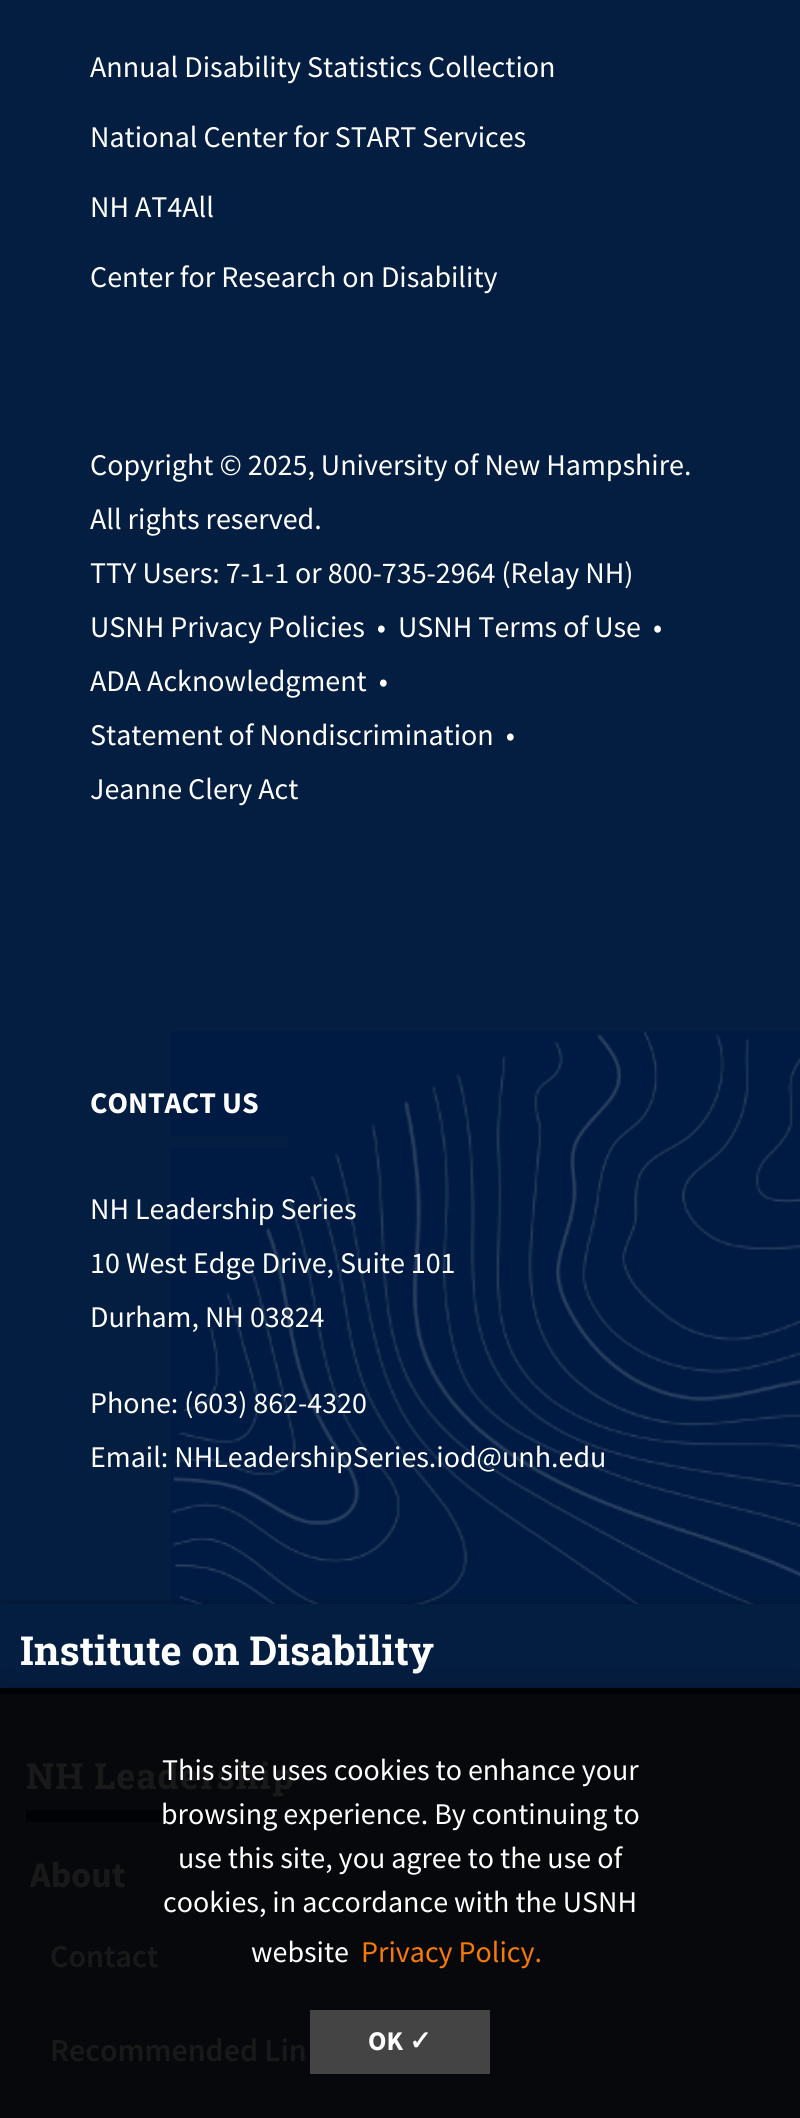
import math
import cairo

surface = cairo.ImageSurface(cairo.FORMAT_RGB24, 800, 2118)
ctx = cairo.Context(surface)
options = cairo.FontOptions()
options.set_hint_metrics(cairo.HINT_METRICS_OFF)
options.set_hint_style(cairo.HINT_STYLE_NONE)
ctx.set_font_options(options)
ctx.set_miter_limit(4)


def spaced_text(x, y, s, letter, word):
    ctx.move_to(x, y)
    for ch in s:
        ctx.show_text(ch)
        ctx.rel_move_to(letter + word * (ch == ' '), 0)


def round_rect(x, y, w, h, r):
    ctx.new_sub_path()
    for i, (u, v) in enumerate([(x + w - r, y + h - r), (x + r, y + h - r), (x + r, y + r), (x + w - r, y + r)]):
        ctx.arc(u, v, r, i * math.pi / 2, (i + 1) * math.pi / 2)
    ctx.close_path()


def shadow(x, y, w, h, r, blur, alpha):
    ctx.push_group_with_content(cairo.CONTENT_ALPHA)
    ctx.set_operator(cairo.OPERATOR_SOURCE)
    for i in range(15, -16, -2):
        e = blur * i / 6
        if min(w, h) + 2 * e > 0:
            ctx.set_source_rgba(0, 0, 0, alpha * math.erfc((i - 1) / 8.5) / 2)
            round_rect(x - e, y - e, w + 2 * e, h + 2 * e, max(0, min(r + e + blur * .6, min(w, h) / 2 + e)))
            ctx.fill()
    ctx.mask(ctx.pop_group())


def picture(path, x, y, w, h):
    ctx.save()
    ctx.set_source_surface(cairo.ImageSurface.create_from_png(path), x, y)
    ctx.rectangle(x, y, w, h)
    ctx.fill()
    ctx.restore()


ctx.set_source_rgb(0.016, 0.118, 0.259)
ctx.paint()
ctx.select_font_face("Source Sans Pro")
ctx.set_font_size(30)
ctx.set_source_rgb(1, 1, 1)
ctx.move_to(90, 77)
ctx.show_text("Annual Disability Statistics Collection")
ctx.move_to(90, 147)
ctx.show_text("National Center for START Services")
ctx.move_to(90, 217)
ctx.show_text("NH AT4All")
ctx.move_to(90, 287)
ctx.show_text("Center for Research on Disability")
ctx.move_to(90, 475)
ctx.show_text("Copyright © 2025, University of New Hampshire.")
ctx.move_to(90, 529)
ctx.show_text("All rights reserved.")
ctx.move_to(90, 583)
ctx.show_text("TTY Users: 7-1-1 or 800-735-2964 (Relay NH)")
ctx.move_to(90, 637)
ctx.show_text("USNH Privacy Policies  •")
ctx.move_to(398, 637)
ctx.show_text("USNH Terms of Use  •")
ctx.move_to(90, 691)
ctx.show_text("ADA Acknowledgment  •")
ctx.move_to(90, 745)
ctx.show_text("Statement of Nondiscrimination  •")
ctx.move_to(90, 799)
ctx.show_text("Jeanne Clery Act")
picture("img1.png", 171, 1031, 629, 573)
ctx.select_font_face("Source Sans Pro", cairo.FONT_SLANT_NORMAL, cairo.FONT_WEIGHT_BOLD)
ctx.move_to(90, 1113)
ctx.show_text("CONTACT US")
ctx.set_source_rgb(0.016, 0.118, 0.259)
ctx.rectangle(171, 1136, 117, 12)
ctx.fill()
ctx.select_font_face("Source Sans Pro")
ctx.set_source_rgb(1, 1, 1)
ctx.move_to(90, 1219)
ctx.show_text("NH Leadership Series")
ctx.move_to(90, 1273)
ctx.show_text("10 West Edge Drive, Suite 101")
ctx.move_to(90, 1327)
ctx.show_text("Durham, NH 03824")
ctx.move_to(90, 1413)
ctx.show_text("Phone: (603) 862-4320")
ctx.move_to(90, 1467)
ctx.show_text("Email: NHLeadershipSeries.iod@unh.edu")
ctx.set_source_rgb(0, 0, 0)
shadow(4, 1604, 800, 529, 0, 5, 0.3)
ctx.set_source_rgb(0.016, 0.118, 0.259)
ctx.rectangle(0, 1604, 800, 84)
ctx.fill()
ctx.set_source_rgb(0, 0.012, 0.027)
ctx.rectangle(0, 1688, 800, 6)
ctx.fill()
ctx.select_font_face("Roboto Slab", cairo.FONT_SLANT_NORMAL, cairo.FONT_WEIGHT_BOLD)
ctx.set_font_size(40)
ctx.set_source_rgb(1, 1, 1)
ctx.move_to(20, 1665)
ctx.show_text("Institute on Disability")
ctx.set_source_rgb(0.027, 0.035, 0.043)
ctx.rectangle(0, 1694, 800, 424)
ctx.fill()
ctx.set_font_size(36)
ctx.set_source_rgb(0.098, 0.098, 0.098)
spaced_text(26, 1789, "NH Leadership", 1, 0)
ctx.set_source_rgb(0, 0.012, 0.027)
ctx.rectangle(26, 1810, 188, 12)
ctx.fill()
ctx.select_font_face("Source Sans Pro", cairo.FONT_SLANT_NORMAL, cairo.FONT_WEIGHT_BOLD)
ctx.set_source_rgb(0.098, 0.098, 0.098)
ctx.move_to(30, 1887)
ctx.show_text("About")
ctx.select_font_face("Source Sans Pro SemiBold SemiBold")
ctx.set_font_size(32)
ctx.move_to(50, 1967)
ctx.show_text("Contact")
ctx.move_to(50, 2061)
ctx.show_text("Recommended Lin")
ctx.save()
ctx.rectangle(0, 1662, 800, 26)
ctx.clip()
ctx.set_source_rgb(0, 0, 0)
shadow(0, 1688, 800, 430, 0, 17, 0.3)
ctx.restore()
ctx.select_font_face("Source Sans Pro")
ctx.set_font_size(30)
ctx.set_source_rgb(1, 1, 1)
ctx.move_to(162, 1780)
ctx.show_text("This site uses cookies to enhance your")
ctx.move_to(161, 1824)
ctx.show_text("browsing experience. By continuing to")
ctx.move_to(178, 1868)
ctx.show_text("use this site, you agree to the use of")
ctx.move_to(163, 1912)
ctx.show_text("cookies, in accordance with the USNH")
ctx.move_to(251, 1962)
ctx.show_text("website")
ctx.set_source_rgb(0.969, 0.478, 0.02)
ctx.move_to(361, 1962)
ctx.show_text("Privacy Policy.")
ctx.set_source_rgb(0.267, 0.267, 0.267)
ctx.rectangle(310, 2010, 180, 64)
ctx.fill()
ctx.select_font_face("Source Sans Pro", cairo.FONT_SLANT_NORMAL, cairo.FONT_WEIGHT_BOLD)
ctx.set_font_size(27)
ctx.set_source_rgb(1, 1, 1)
ctx.move_to(368, 2050)
ctx.show_text("OK")
ctx.select_font_face("DejaVu Sans", cairo.FONT_SLANT_NORMAL, cairo.FONT_WEIGHT_BOLD)
ctx.move_to(409, 2050)
ctx.show_text("✓")
surface.write_to_png("page.png")
